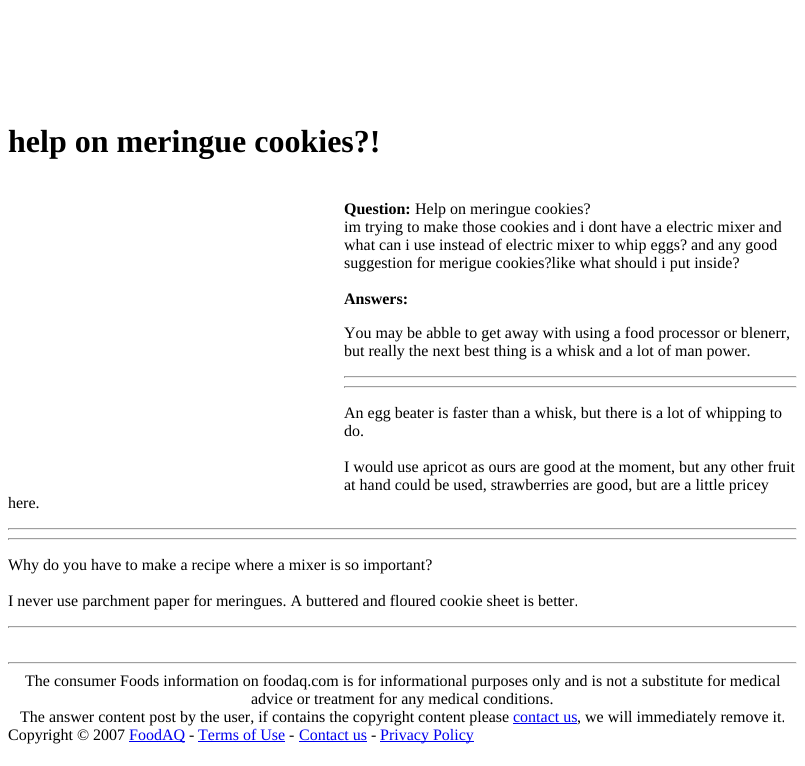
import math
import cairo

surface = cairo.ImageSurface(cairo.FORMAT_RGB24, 805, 766)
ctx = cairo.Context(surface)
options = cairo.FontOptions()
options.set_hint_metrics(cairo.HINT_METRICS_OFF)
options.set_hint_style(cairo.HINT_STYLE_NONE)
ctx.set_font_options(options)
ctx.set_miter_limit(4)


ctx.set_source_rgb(1, 1, 1)
ctx.paint()
ctx.select_font_face("Liberation Serif", cairo.FONT_SLANT_NORMAL, cairo.FONT_WEIGHT_BOLD)
ctx.set_font_size(32)
ctx.set_source_rgb(0, 0, 0)
ctx.move_to(8, 152)
ctx.show_text("help on meringue cookies?!")
ctx.set_font_size(16)
ctx.move_to(344, 214)
ctx.show_text("Question:")
ctx.select_font_face("Liberation Serif")
ctx.move_to(415, 214)
ctx.show_text("Help on meringue cookies?")
ctx.move_to(344, 232)
ctx.show_text("im trying to make those cookies and i dont have a electric mixer and")
ctx.move_to(344, 250)
ctx.show_text("what can i use instead of electric mixer to whip eggs? and any good")
ctx.move_to(344, 268)
ctx.show_text("suggestion for merigue cookies?like what should i put inside?")
ctx.select_font_face("Liberation Serif", cairo.FONT_SLANT_NORMAL, cairo.FONT_WEIGHT_BOLD)
ctx.move_to(344, 304)
ctx.show_text("Answers:")
ctx.select_font_face("Liberation Serif")
ctx.move_to(344, 338)
ctx.show_text("You may be abble to get away with using a food processor or blenerr,")
ctx.move_to(344, 356)
ctx.show_text("but really the next best thing is a whisk and a lot of man power.")
ctx.set_source_rgb(0.624, 0.624, 0.624)
ctx.rectangle(344, 376, 453, 1)
ctx.fill()
ctx.set_source_rgb(0.933, 0.933, 0.933)
ctx.rectangle(796, 376, 1, 2)
ctx.fill()
ctx.rectangle(344, 377, 453, 1)
ctx.fill()
ctx.set_source_rgb(0.624, 0.624, 0.624)
ctx.rectangle(344, 376, 1, 2)
ctx.fill()
ctx.rectangle(344, 386, 453, 1)
ctx.fill()
ctx.set_source_rgb(0.933, 0.933, 0.933)
ctx.rectangle(796, 386, 1, 2)
ctx.fill()
ctx.rectangle(344, 387, 453, 1)
ctx.fill()
ctx.set_source_rgb(0.624, 0.624, 0.624)
ctx.rectangle(344, 386, 1, 2)
ctx.fill()
ctx.set_source_rgb(0, 0, 0)
ctx.move_to(344, 418)
ctx.show_text("An egg beater is faster than a whisk, but there is a lot of whipping to")
ctx.move_to(344, 436)
ctx.show_text("do.")
ctx.move_to(344, 472)
ctx.show_text("I would use apricot as ours are good at the moment, but any other fruit")
ctx.move_to(344, 490)
ctx.show_text("at hand could be used, strawberries are good, but are a little pricey")
ctx.move_to(8, 508)
ctx.show_text("here.")
ctx.set_source_rgb(0.624, 0.624, 0.624)
ctx.rectangle(8, 528, 789, 1)
ctx.fill()
ctx.set_source_rgb(0.933, 0.933, 0.933)
ctx.rectangle(796, 528, 1, 2)
ctx.fill()
ctx.rectangle(8, 529, 789, 1)
ctx.fill()
ctx.set_source_rgb(0.624, 0.624, 0.624)
ctx.rectangle(8, 528, 1, 2)
ctx.fill()
ctx.rectangle(8, 538, 789, 1)
ctx.fill()
ctx.set_source_rgb(0.933, 0.933, 0.933)
ctx.rectangle(796, 538, 1, 2)
ctx.fill()
ctx.rectangle(8, 539, 789, 1)
ctx.fill()
ctx.set_source_rgb(0.624, 0.624, 0.624)
ctx.rectangle(8, 538, 1, 2)
ctx.fill()
ctx.set_source_rgb(0, 0, 0)
ctx.move_to(8, 570)
ctx.show_text("Why do you have to make a recipe where a mixer is so important?")
ctx.move_to(8, 606)
ctx.show_text("I never use parchment paper for meringues. A buttered and floured cookie sheet is better.")
ctx.set_source_rgb(0.624, 0.624, 0.624)
ctx.rectangle(8, 626, 789, 1)
ctx.fill()
ctx.set_source_rgb(0.933, 0.933, 0.933)
ctx.rectangle(796, 626, 1, 2)
ctx.fill()
ctx.rectangle(8, 627, 789, 1)
ctx.fill()
ctx.set_source_rgb(0.624, 0.624, 0.624)
ctx.rectangle(8, 626, 1, 2)
ctx.fill()
ctx.rectangle(8, 662, 789, 1)
ctx.fill()
ctx.set_source_rgb(0.933, 0.933, 0.933)
ctx.rectangle(796, 662, 1, 2)
ctx.fill()
ctx.rectangle(8, 663, 789, 1)
ctx.fill()
ctx.set_source_rgb(0.624, 0.624, 0.624)
ctx.rectangle(8, 662, 1, 2)
ctx.fill()
ctx.set_source_rgb(0, 0, 0)
ctx.move_to(25, 686)
ctx.show_text("The consumer Foods information on foodaq.com is for informational purposes only and is not a substitute for medical")
ctx.move_to(251, 704)
ctx.show_text("advice or treatment for any medical conditions.")
ctx.move_to(20, 722)
ctx.show_text("The answer content post by the user, if contains the copyright content please")
ctx.set_source_rgb(0, 0, 0.933)
ctx.move_to(513, 722)
ctx.show_text("contact us")
ctx.rectangle(513, 723, 64, 1)
ctx.fill()
ctx.set_source_rgb(0, 0, 0)
ctx.move_to(577, 722)
ctx.show_text(", we will immediately remove it.")
ctx.move_to(8, 740)
ctx.show_text("Copyright © 2007")
ctx.set_source_rgb(0, 0, 0.933)
ctx.rectangle(129, 741, 56, 1)
ctx.fill()
ctx.move_to(129, 740)
ctx.show_text("FoodAQ")
ctx.set_source_rgb(0, 0, 0)
ctx.move_to(189, 740)
ctx.show_text("-")
ctx.set_source_rgb(0, 0, 0.933)
ctx.move_to(198, 740)
ctx.show_text("Terms of Use")
ctx.rectangle(198, 741, 87, 1)
ctx.fill()
ctx.set_source_rgb(0, 0, 0)
ctx.move_to(289, 740)
ctx.show_text("-")
ctx.set_source_rgb(0, 0, 0.933)
ctx.move_to(299, 740)
ctx.show_text("Contact us")
ctx.rectangle(299, 741, 68, 1)
ctx.fill()
ctx.set_source_rgb(0, 0, 0)
ctx.move_to(371, 740)
ctx.show_text("-")
ctx.set_source_rgb(0, 0, 0.933)
ctx.rectangle(380, 741, 94, 1)
ctx.fill()
ctx.move_to(380, 740)
ctx.show_text("Privacy Policy")
surface.write_to_png("page.png")
